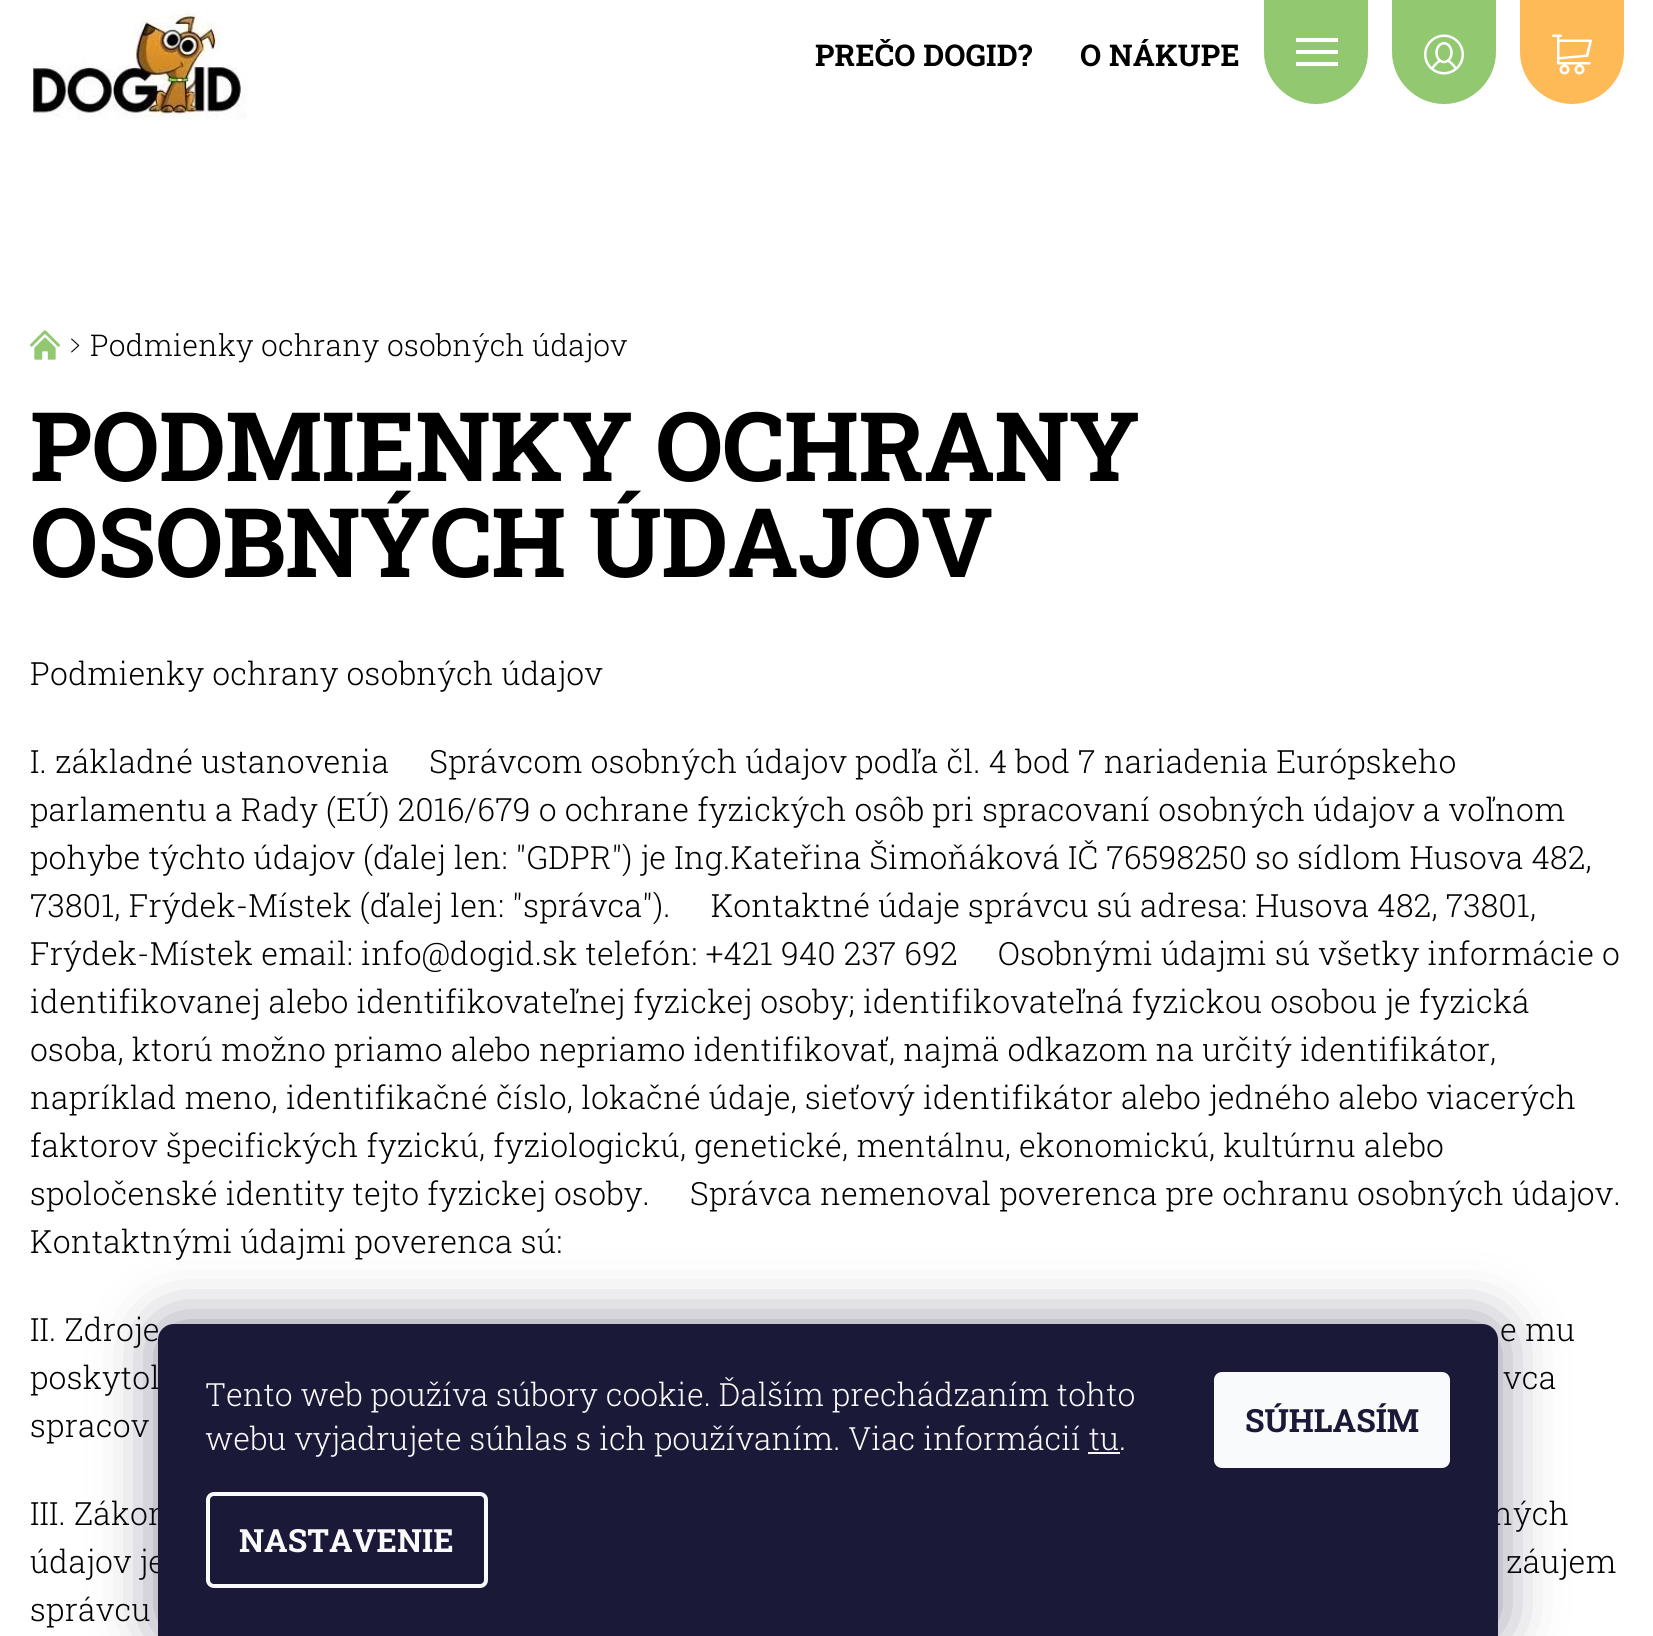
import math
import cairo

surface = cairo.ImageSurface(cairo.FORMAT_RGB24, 1653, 1636)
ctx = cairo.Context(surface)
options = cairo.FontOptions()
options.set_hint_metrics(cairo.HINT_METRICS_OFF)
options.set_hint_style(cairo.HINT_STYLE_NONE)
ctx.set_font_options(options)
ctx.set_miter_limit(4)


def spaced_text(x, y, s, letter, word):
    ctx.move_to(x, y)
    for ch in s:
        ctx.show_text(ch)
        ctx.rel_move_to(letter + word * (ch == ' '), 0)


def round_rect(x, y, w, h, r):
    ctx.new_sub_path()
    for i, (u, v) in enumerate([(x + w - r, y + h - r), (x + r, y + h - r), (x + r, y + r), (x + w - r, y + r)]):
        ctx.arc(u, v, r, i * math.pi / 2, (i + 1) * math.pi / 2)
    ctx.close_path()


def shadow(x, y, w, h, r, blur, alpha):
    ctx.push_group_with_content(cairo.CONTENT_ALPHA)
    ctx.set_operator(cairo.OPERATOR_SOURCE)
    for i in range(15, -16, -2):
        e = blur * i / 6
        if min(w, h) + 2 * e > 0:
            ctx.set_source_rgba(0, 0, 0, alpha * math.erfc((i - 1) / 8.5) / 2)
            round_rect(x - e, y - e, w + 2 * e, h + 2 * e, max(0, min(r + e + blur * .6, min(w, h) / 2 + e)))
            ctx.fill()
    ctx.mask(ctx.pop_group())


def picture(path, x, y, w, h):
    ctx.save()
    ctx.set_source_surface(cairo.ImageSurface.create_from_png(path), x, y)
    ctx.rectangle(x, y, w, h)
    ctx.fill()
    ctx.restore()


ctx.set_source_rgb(1, 1, 1)
ctx.paint()
picture("img1.png", 31, 10, 216, 110)
ctx.select_font_face("Roboto Slab", cairo.FONT_SLANT_NORMAL, cairo.FONT_WEIGHT_BOLD)
ctx.set_font_size(30)
ctx.set_source_rgb(0, 0, 0)
spaced_text(815, 66, "PREČO DOGID?", 0.2, 0)
spaced_text(1080, 66, "O NÁKUPE", 0.2, 0)
ctx.set_source_rgb(0.569, 0.784, 0.439)
ctx.new_path()
ctx.move_to(1264, 0)
ctx.line_to(1368, 0)
ctx.line_to(1368, 52)
ctx.curve_to(1368, 80.5, 1344.5, 104, 1316, 104)
ctx.curve_to(1287.5, 104, 1264, 80.5, 1264, 52)
ctx.close_path()
ctx.fill()
ctx.set_source_rgb(1, 1, 1)
ctx.rectangle(1296, 38, 42, 4)
ctx.fill()
ctx.rectangle(1296, 50, 42, 4)
ctx.fill()
ctx.rectangle(1296, 62, 42, 4)
ctx.fill()
ctx.set_source_rgb(0.569, 0.784, 0.439)
ctx.new_path()
ctx.move_to(1392, 0)
ctx.line_to(1496, 0)
ctx.line_to(1496, 52)
ctx.curve_to(1496, 80.5, 1472.5, 104, 1444, 104)
ctx.curve_to(1415.5, 104, 1392, 80.5, 1392, 52)
ctx.close_path()
ctx.fill()
picture("img2.png", 1424, 34, 40, 41)
ctx.set_source_rgb(0.996, 0.729, 0.341)
ctx.new_path()
ctx.move_to(1520, 0)
ctx.line_to(1624, 0)
ctx.line_to(1624, 52)
ctx.curve_to(1624, 80.5, 1600.5, 104, 1572, 104)
ctx.curve_to(1543.5, 104, 1520, 80.5, 1520, 52)
ctx.close_path()
ctx.fill()
picture("img3.png", 1552, 34, 40, 41)
picture("img4.png", 30, 330, 30, 30)
picture("img5.png", 71, 338, 9, 15)
ctx.select_font_face("Roboto Slab Light")
ctx.set_source_rgb(0, 0, 0)
spaced_text(90, 356, "Podmienky ochrany osobných údajov", 0.2, 0)
ctx.select_font_face("Roboto Slab", cairo.FONT_SLANT_NORMAL, cairo.FONT_WEIGHT_BOLD)
ctx.set_font_size(96)
spaced_text(30, 481, "PODMIENKY OCHRANY", -0.5, 0)
spaced_text(30, 577, "OSOBNÝCH ÚDAJOV", -0.5, 0)
ctx.select_font_face("Roboto Slab Light")
ctx.set_font_size(32)
spaced_text(30, 685, "Podmienky ochrany osobných údajov", 0.2, 0)
spaced_text(30, 773, "I. základné ustanovenia     Správcom osobných údajov podľa čl. 4 bod 7 nariadenia Európskeho", 0.2, 0)
spaced_text(30, 821, "parlamentu a Rady (EÚ) 2016/679 o ochrane fyzických osôb pri spracovaní osobných údajov a voľnom", 0.2, 0)
spaced_text(30, 869, "pohybe týchto údajov (ďalej len: \"GDPR\") je Ing.Kateřina Šimoňáková IČ 76598250 so sídlom Husova 482,", 0.2, 0)
spaced_text(30, 917, "73801, Frýdek-Místek (ďalej len: \"správca\").     Kontaktné údaje správcu sú adresa: Husova 482, 73801,", 0.2, 0)
spaced_text(30, 965, "Frýdek-Místek email: info@dogid.sk telefón: +421 940 237 692     Osobnými údajmi sú všetky informácie o", 0.2, 0)
spaced_text(30, 1013, "identifikovanej alebo identifikovateľnej fyzickej osoby; identifikovateľná fyzickou osobou je fyzická", 0.2, 0)
spaced_text(30, 1061, "osoba, ktorú možno priamo alebo nepriamo identifikovať, najmä odkazom na určitý identifikátor,", 0.2, 0)
spaced_text(30, 1109, "napríklad meno, identifikačné číslo, lokačné údaje, sieťový identifikátor alebo jedného alebo viacerých", 0.2, 0)
spaced_text(30, 1157, "faktorov špecifických fyzickú, fyziologickú, genetické, mentálnu, ekonomickú, kultúrnu alebo", 0.2, 0)
spaced_text(30, 1205, "spoločenské identity tejto fyzickej osoby.     Správca nemenoval poverenca pre ochranu osobných údajov.", 0.2, 0)
spaced_text(30, 1253, "Kontaktnými údajmi poverenca sú:", 0.2, 0)
spaced_text(30, 1341, "II. Zdroje", 0.2, 0)
spaced_text(1500, 1341, "e mu", 0.2, 0)
spaced_text(30, 1389, "poskytol", 0.2, 0)
spaced_text(1503, 1389, "vca", 0.2, 0)
spaced_text(30, 1437, "spracov", 0.2, 0)
spaced_text(30, 1525, "III. Zákon", 0.2, 0)
spaced_text(1492, 1525, "ných", 0.2, 0)
spaced_text(30, 1573, "údajov je", 0.2, 0)
spaced_text(1506, 1573, "záujem", 0.2, 0)
spaced_text(30, 1621, "správcu", 0.2, 0)
ctx.set_source_rgb(0.106, 0.098, 0.224)
shadow(158, 1324, 1340, 312, 16, 30, 0.5)
ctx.set_source_rgb(0.102, 0.098, 0.216)
ctx.new_path()
ctx.move_to(174, 1324)
ctx.line_to(1482, 1324)
ctx.curve_to(1491, 1324, 1498, 1331, 1498, 1340)
ctx.line_to(1498, 1636)
ctx.line_to(158, 1636)
ctx.line_to(158, 1340)
ctx.curve_to(158, 1331, 165, 1324, 174, 1324)
ctx.close_path()
ctx.fill()
ctx.set_source_rgb(0.973, 0.98, 0.984)
ctx.move_to(205, 1406)
ctx.show_text("Tento web používa súbory cookie. Ďalším prechádzaním tohto")
ctx.move_to(205, 1450)
ctx.show_text("webu vyjadrujete súhlas s ich používaním. Viac informácií tu.")
ctx.rectangle(1088, 1452, 32, 2)
ctx.fill()
round_rect(208, 1494, 278, 92, 6)
ctx.set_line_width(4)
ctx.stroke()
ctx.select_font_face("Roboto Slab", cairo.FONT_SLANT_NORMAL, cairo.FONT_WEIGHT_BOLD)
ctx.move_to(239, 1552)
ctx.show_text("NASTAVENIE")
round_rect(1214, 1372, 236, 96, 8)
ctx.fill()
ctx.set_source_rgb(0.102, 0.098, 0.216)
ctx.move_to(1245, 1432)
ctx.show_text("SÚHLASÍM")
surface.write_to_png("page.png")
